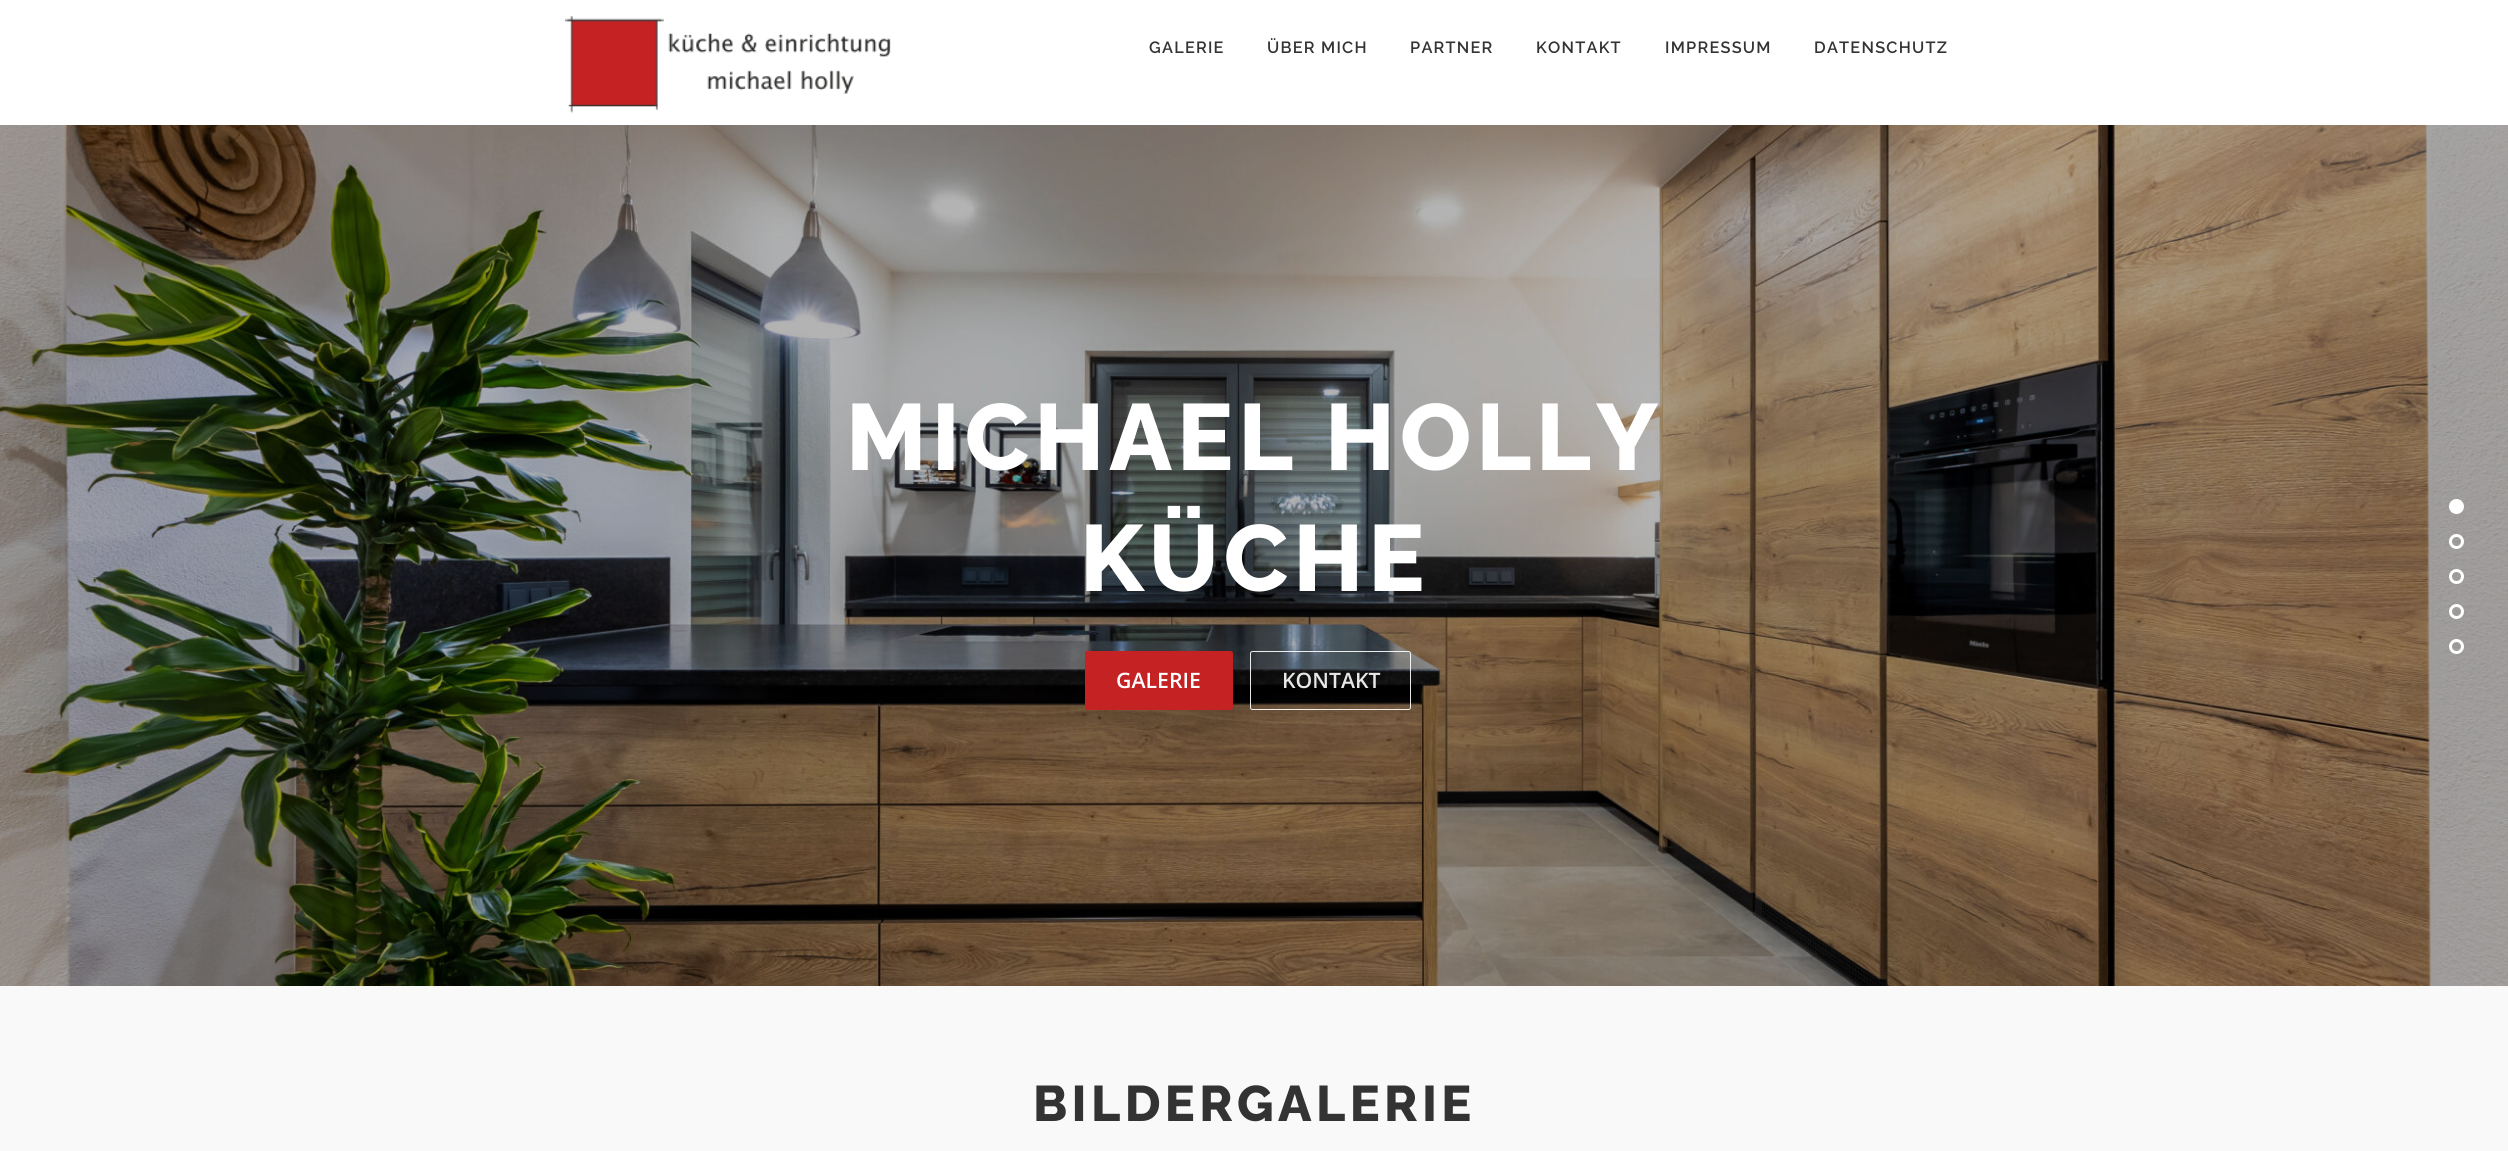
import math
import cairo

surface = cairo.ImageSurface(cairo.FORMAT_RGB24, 2508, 1151)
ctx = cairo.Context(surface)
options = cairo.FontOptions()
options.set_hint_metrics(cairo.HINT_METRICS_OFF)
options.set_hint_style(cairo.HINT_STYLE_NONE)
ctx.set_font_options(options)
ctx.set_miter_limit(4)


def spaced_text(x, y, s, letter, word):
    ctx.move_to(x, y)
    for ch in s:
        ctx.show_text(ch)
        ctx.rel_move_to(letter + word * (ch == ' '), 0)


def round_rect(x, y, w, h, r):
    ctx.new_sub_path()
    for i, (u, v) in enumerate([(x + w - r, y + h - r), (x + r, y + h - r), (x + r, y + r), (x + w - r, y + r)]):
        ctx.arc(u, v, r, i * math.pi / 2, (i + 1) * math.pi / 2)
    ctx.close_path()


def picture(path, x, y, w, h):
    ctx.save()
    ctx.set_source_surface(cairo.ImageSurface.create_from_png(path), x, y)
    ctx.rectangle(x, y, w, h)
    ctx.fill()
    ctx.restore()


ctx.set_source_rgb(1, 1, 1)
ctx.paint()
picture("img1.png", 564, 15, 327, 98)
ctx.select_font_face("Raleway SemiBold")
ctx.set_font_size(16.25)
ctx.set_source_rgb(0.2, 0.2, 0.2)
spaced_text(1149, 53, "GALERIE", 1.25, 0)
spaced_text(1267, 53, "ÜBER MICH", 1.25, 0)
spaced_text(1410, 53, "PARTNER", 1.25, 0)
spaced_text(1536, 53, "KONTAKT", 1.25, 0)
spaced_text(1665, 53, "IMPRESSUM", 1.25, 0)
spaced_text(1814, 53, "DATENSCHUTZ", 1.25, 0)
picture("img2.png", 0, 125, 2508, 861)
ctx.select_font_face("Raleway ExtraBold")
ctx.set_font_size(93.75)
ctx.set_source_rgb(1, 1, 1)
spaced_text(846, 470, "MICHAEL HOLLY", 5, 0)
spaced_text(1080, 591, "KÜCHE", 5, 0)
ctx.set_source_rgb(0.773, 0.133, 0.137)
round_rect(1085, 651, 148, 59, 2.5)
ctx.fill()
ctx.select_font_face("Open Sans SemiBold")
ctx.set_font_size(21.25)
ctx.set_source_rgb(1, 1, 1)
ctx.move_to(1116, 688)
ctx.show_text("GALERIE")
round_rect(1250.5, 651.5, 160, 58, 2)
ctx.set_source_rgba(1, 1, 1, 0.9)
ctx.set_line_width(1)
ctx.stroke()
ctx.set_source_rgb(0.906, 0.906, 0.906)
ctx.move_to(1282, 688)
ctx.show_text("KONTAKT")
ctx.set_source_rgb(0.973, 0.976, 0.976)
ctx.rectangle(0, 986, 2508, 165)
ctx.fill()
ctx.select_font_face("Raleway ExtraBold")
ctx.set_font_size(50)
ctx.set_source_rgb(0.2, 0.2, 0.2)
spaced_text(1033, 1121, "BILDERGALERIE", 4.4, 0)
ctx.set_source_rgb(1, 1, 1)
ctx.new_path()
ctx.arc(2456.5, 506.5, 6, 0, 2 * math.pi)
ctx.fill_preserve()
ctx.set_line_width(3)
ctx.stroke()
ctx.arc(2456.5, 541.5, 6, 0, 2 * math.pi)
ctx.stroke()
ctx.arc(2456.5, 576.5, 6, 0, 2 * math.pi)
ctx.stroke()
ctx.arc(2456.5, 611.5, 6, 0, 2 * math.pi)
ctx.stroke()
ctx.arc(2456.5, 646.5, 6, 0, 2 * math.pi)
ctx.stroke()
surface.write_to_png("page.png")
